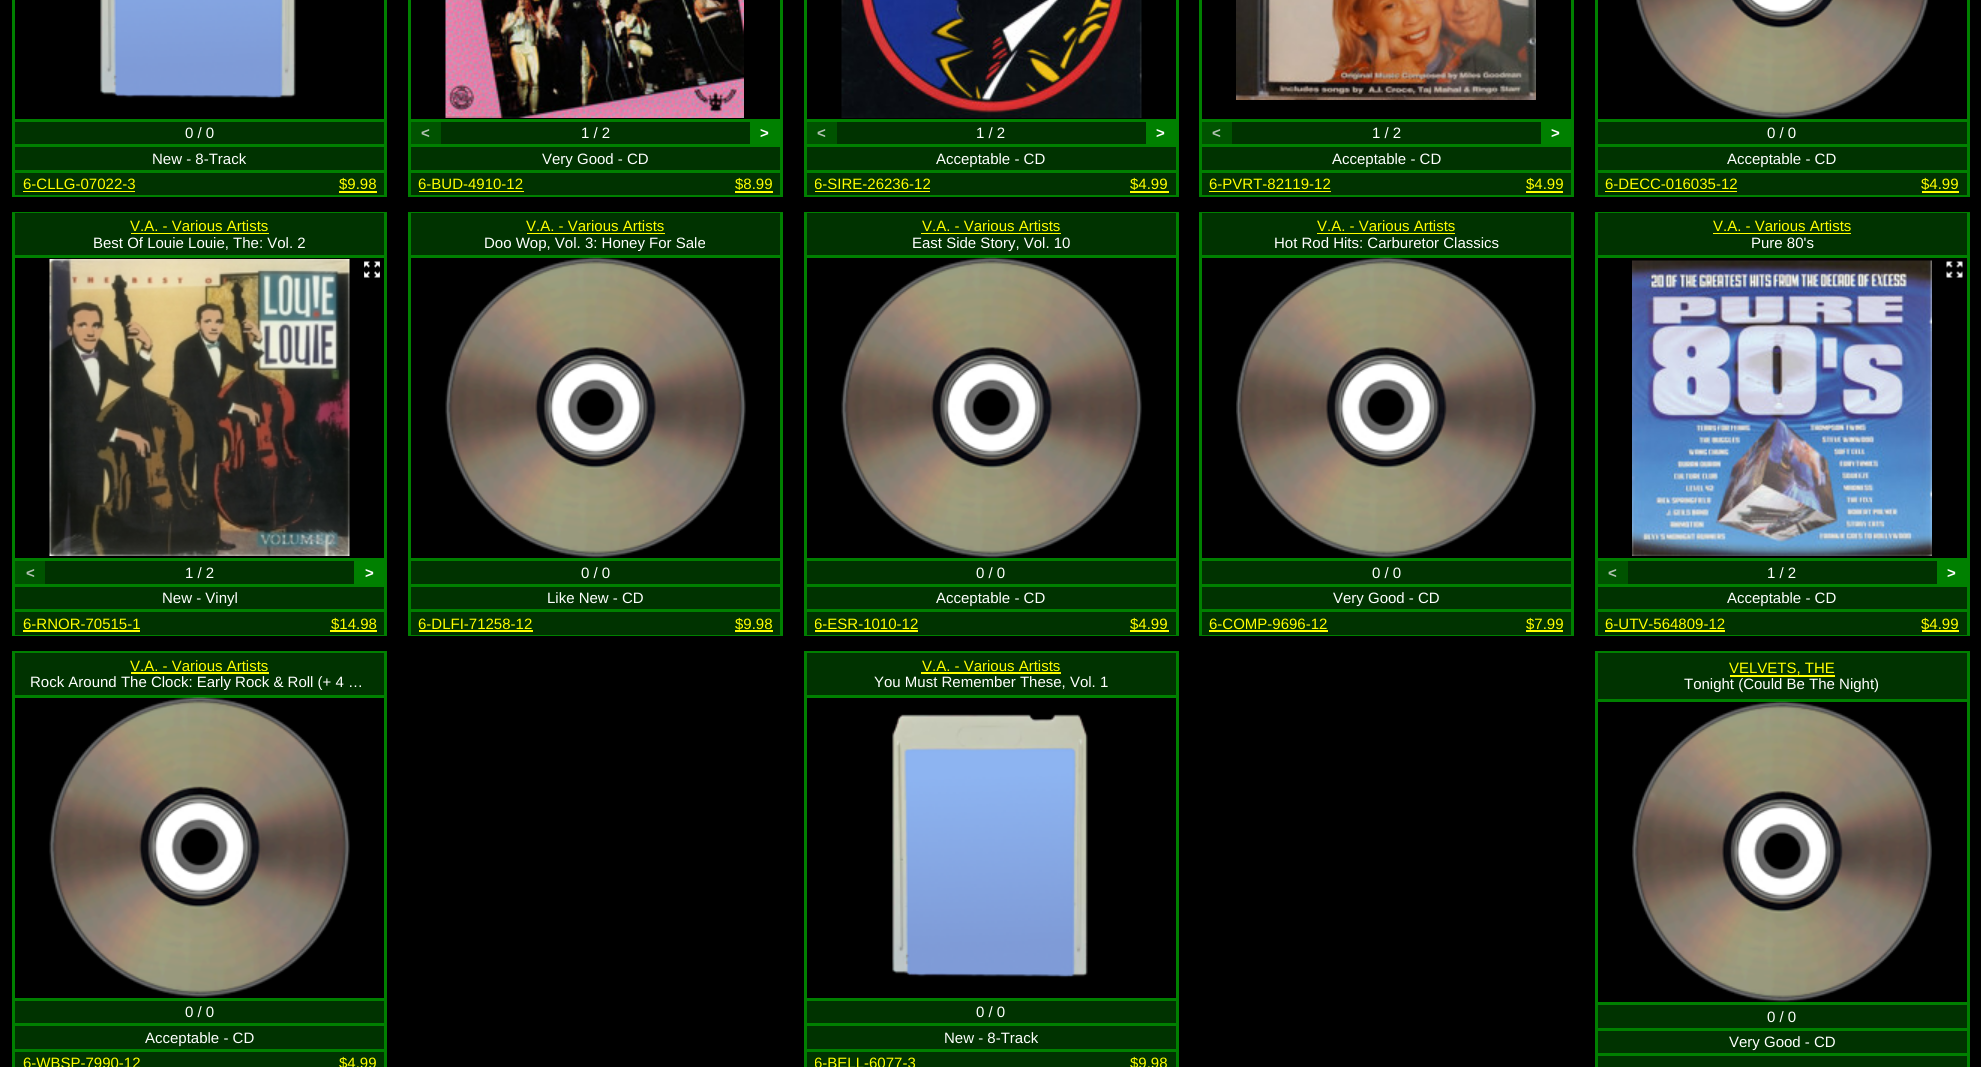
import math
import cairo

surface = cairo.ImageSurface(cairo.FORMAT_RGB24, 1981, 1067)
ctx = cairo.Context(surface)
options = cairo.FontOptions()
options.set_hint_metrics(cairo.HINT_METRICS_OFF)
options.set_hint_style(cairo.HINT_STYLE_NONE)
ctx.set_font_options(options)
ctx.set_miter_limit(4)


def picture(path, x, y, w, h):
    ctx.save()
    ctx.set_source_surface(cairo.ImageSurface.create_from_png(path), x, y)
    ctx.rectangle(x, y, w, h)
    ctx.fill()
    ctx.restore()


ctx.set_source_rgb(0, 0, 0)
ctx.paint()
ctx.set_source_rgb(0, 0.502, 0)
ctx.rectangle(12, 0, 375, 197)
ctx.fill()
ctx.set_source_rgb(0, 0, 0)
ctx.rectangle(15, 0, 369, 119)
ctx.fill()
picture("img1.png", 100, 0, 196, 99)
ctx.set_source_rgb(0, 0.2, 0)
ctx.rectangle(15, 122, 369, 22)
ctx.fill()
ctx.select_font_face("Liberation Sans")
ctx.set_font_size(15)
ctx.set_source_rgb(1, 1, 1)
ctx.move_to(185, 138)
ctx.show_text("0 / 0")
ctx.set_source_rgb(0, 0.2, 0)
ctx.rectangle(15, 147, 369, 23)
ctx.fill()
ctx.set_source_rgb(1, 1, 1)
ctx.move_to(152, 164)
ctx.show_text("New - 8-Track")
ctx.set_source_rgb(0, 0.2, 0)
ctx.rectangle(15, 173, 369, 22)
ctx.fill()
ctx.set_source_rgb(1, 1, 0)
ctx.move_to(23, 189)
ctx.show_text("6-CLLG-07022-3")
ctx.rectangle(23, 191, 112, 1)
ctx.fill()
ctx.move_to(339, 189)
ctx.show_text("$9.98")
ctx.rectangle(339, 191, 38, 2)
ctx.fill()
ctx.set_source_rgb(0, 0.502, 0)
ctx.rectangle(408, 0, 375, 197)
ctx.fill()
ctx.set_source_rgb(0, 0, 0)
ctx.rectangle(411, 0, 369, 119)
ctx.fill()
picture("img2.png", 445, 0, 299, 118)
ctx.set_source_rgb(0, 0.2, 0)
ctx.rectangle(441, 122, 309, 22)
ctx.fill()
ctx.set_source_rgb(0, 0.325, 0)
ctx.rectangle(411, 122, 30, 22)
ctx.fill()
ctx.select_font_face("Liberation Sans", cairo.FONT_SLANT_NORMAL, cairo.FONT_WEIGHT_BOLD)
ctx.set_source_rgb(0.702, 0.761, 0.702)
ctx.move_to(421, 138)
ctx.show_text("<")
ctx.select_font_face("Liberation Sans")
ctx.set_source_rgb(1, 1, 1)
ctx.move_to(581, 138)
ctx.show_text("1 / 2")
ctx.select_font_face("Liberation Sans", cairo.FONT_SLANT_NORMAL, cairo.FONT_WEIGHT_BOLD)
ctx.move_to(760, 138)
ctx.show_text(">")
ctx.set_source_rgb(0, 0.2, 0)
ctx.rectangle(411, 147, 369, 23)
ctx.fill()
ctx.select_font_face("Liberation Sans")
ctx.set_source_rgb(1, 1, 1)
ctx.move_to(542, 164)
ctx.show_text("Very Good - CD")
ctx.set_source_rgb(0, 0.2, 0)
ctx.rectangle(411, 173, 369, 22)
ctx.fill()
ctx.set_source_rgb(1, 1, 0)
ctx.move_to(418, 189)
ctx.show_text("6-BUD-4910-12")
ctx.rectangle(419, 191, 105, 1)
ctx.fill()
ctx.move_to(735, 189)
ctx.show_text("$8.99")
ctx.rectangle(735, 191, 38, 2)
ctx.fill()
ctx.set_source_rgb(0, 0.502, 0)
ctx.rectangle(804, 0, 375, 197)
ctx.fill()
ctx.set_source_rgb(0, 0, 0)
ctx.rectangle(807, 0, 369, 119)
ctx.fill()
picture("img3.png", 841, 0, 301, 118)
ctx.set_source_rgb(0, 0.2, 0)
ctx.rectangle(837, 122, 309, 22)
ctx.fill()
ctx.set_source_rgb(0, 0.325, 0)
ctx.rectangle(807, 122, 30, 22)
ctx.fill()
ctx.select_font_face("Liberation Sans", cairo.FONT_SLANT_NORMAL, cairo.FONT_WEIGHT_BOLD)
ctx.set_source_rgb(0.702, 0.761, 0.702)
ctx.move_to(817, 138)
ctx.show_text("<")
ctx.select_font_face("Liberation Sans")
ctx.set_source_rgb(1, 1, 1)
ctx.move_to(976, 138)
ctx.show_text("1 / 2")
ctx.select_font_face("Liberation Sans", cairo.FONT_SLANT_NORMAL, cairo.FONT_WEIGHT_BOLD)
ctx.move_to(1156, 138)
ctx.show_text(">")
ctx.set_source_rgb(0, 0.2, 0)
ctx.rectangle(807, 147, 369, 23)
ctx.fill()
ctx.select_font_face("Liberation Sans")
ctx.set_source_rgb(1, 1, 1)
ctx.move_to(936, 164)
ctx.show_text("Acceptable - CD")
ctx.set_source_rgb(0, 0.2, 0)
ctx.rectangle(807, 173, 369, 22)
ctx.fill()
ctx.save()
ctx.rectangle(815, 176, 216, 16)
ctx.clip()
ctx.set_source_rgb(1, 1, 0)
ctx.move_to(814, 189)
ctx.show_text("6-SIRE-26236-12")
ctx.restore()
ctx.set_source_rgb(1, 1, 0)
ctx.rectangle(815, 191, 115, 1)
ctx.fill()
ctx.move_to(1130, 189)
ctx.show_text("$4.99")
ctx.rectangle(1130, 191, 39, 2)
ctx.fill()
ctx.set_source_rgb(0, 0.502, 0)
ctx.rectangle(1199, 0, 375, 197)
ctx.fill()
ctx.set_source_rgb(0, 0, 0)
ctx.rectangle(1202, 0, 369, 119)
ctx.fill()
picture("img4.png", 1236, 0, 300, 100)
ctx.set_source_rgb(0, 0.2, 0)
ctx.rectangle(1232, 122, 309, 22)
ctx.fill()
ctx.set_source_rgb(0, 0.325, 0)
ctx.rectangle(1202, 122, 30, 22)
ctx.fill()
ctx.select_font_face("Liberation Sans", cairo.FONT_SLANT_NORMAL, cairo.FONT_WEIGHT_BOLD)
ctx.set_source_rgb(0.702, 0.761, 0.702)
ctx.move_to(1212, 138)
ctx.show_text("<")
ctx.select_font_face("Liberation Sans")
ctx.set_source_rgb(1, 1, 1)
ctx.move_to(1372, 138)
ctx.show_text("1 / 2")
ctx.select_font_face("Liberation Sans", cairo.FONT_SLANT_NORMAL, cairo.FONT_WEIGHT_BOLD)
ctx.move_to(1551, 138)
ctx.show_text(">")
ctx.set_source_rgb(0, 0.2, 0)
ctx.rectangle(1202, 147, 369, 23)
ctx.fill()
ctx.select_font_face("Liberation Sans")
ctx.set_source_rgb(1, 1, 1)
ctx.move_to(1332, 164)
ctx.show_text("Acceptable - CD")
ctx.set_source_rgb(0, 0.2, 0)
ctx.rectangle(1202, 173, 369, 22)
ctx.fill()
ctx.set_source_rgb(1, 1, 0)
ctx.move_to(1209, 189)
ctx.show_text("6-PVRT-82119-12")
ctx.rectangle(1209, 191, 122, 1)
ctx.fill()
ctx.move_to(1526, 189)
ctx.show_text("$4.99")
ctx.rectangle(1526, 191, 37, 2)
ctx.fill()
ctx.set_source_rgb(0, 0.502, 0)
ctx.rectangle(1595, 0, 375, 197)
ctx.fill()
ctx.set_source_rgb(0, 0, 0)
ctx.rectangle(1598, 0, 369, 119)
ctx.fill()
picture("img5.png", 1636, 0, 293, 118)
ctx.set_source_rgb(0, 0.2, 0)
ctx.rectangle(1598, 122, 369, 22)
ctx.fill()
ctx.set_source_rgb(1, 1, 1)
ctx.move_to(1767, 138)
ctx.show_text("0 / 0")
ctx.set_source_rgb(0, 0.2, 0)
ctx.rectangle(1598, 147, 369, 23)
ctx.fill()
ctx.set_source_rgb(1, 1, 1)
ctx.move_to(1727, 164)
ctx.show_text("Acceptable - CD")
ctx.set_source_rgb(0, 0.2, 0)
ctx.rectangle(1598, 173, 369, 22)
ctx.fill()
ctx.set_source_rgb(1, 1, 0)
ctx.move_to(1605, 189)
ctx.show_text("6-DECC-016035-12")
ctx.rectangle(1605, 191, 132, 1)
ctx.fill()
ctx.move_to(1921, 189)
ctx.show_text("$4.99")
ctx.rectangle(1922, 191, 37, 2)
ctx.fill()
ctx.set_source_rgb(0, 0.502, 0)
ctx.rectangle(12, 212, 375, 424)
ctx.fill()
ctx.set_source_rgb(0, 0.2, 0)
ctx.rectangle(15, 213, 369, 42)
ctx.fill()
ctx.set_source_rgb(1, 1, 0)
ctx.move_to(130, 231)
ctx.show_text("V.A. - Various Artists")
ctx.rectangle(131, 233, 138, 1)
ctx.fill()
ctx.set_source_rgb(1, 1, 1)
ctx.move_to(93, 248)
ctx.show_text("Best Of Louie Louie, The: Vol. 2")
ctx.set_source_rgb(0, 0, 0)
ctx.rectangle(15, 258, 369, 300)
ctx.fill()
picture("img6.png", 49, 259, 301, 297)
picture("img7.png", 364, 261, 16, 17)
ctx.set_source_rgb(0, 0.2, 0)
ctx.rectangle(45, 561, 309, 23)
ctx.fill()
ctx.set_source_rgb(0, 0.325, 0)
ctx.rectangle(15, 561, 30, 23)
ctx.fill()
ctx.select_font_face("Liberation Sans", cairo.FONT_SLANT_NORMAL, cairo.FONT_WEIGHT_BOLD)
ctx.set_source_rgb(0.702, 0.761, 0.702)
ctx.move_to(26, 578)
ctx.show_text("<")
ctx.select_font_face("Liberation Sans")
ctx.set_source_rgb(1, 1, 1)
ctx.move_to(185, 578)
ctx.show_text("1 / 2")
ctx.select_font_face("Liberation Sans", cairo.FONT_SLANT_NORMAL, cairo.FONT_WEIGHT_BOLD)
ctx.move_to(365, 578)
ctx.show_text(">")
ctx.set_source_rgb(0, 0.2, 0)
ctx.rectangle(15, 587, 369, 22)
ctx.fill()
ctx.select_font_face("Liberation Sans")
ctx.set_source_rgb(1, 1, 1)
ctx.move_to(162, 603)
ctx.show_text("New - Vinyl")
ctx.set_source_rgb(0, 0.2, 0)
ctx.rectangle(15, 612, 369, 23)
ctx.fill()
ctx.set_source_rgb(1, 1, 0)
ctx.move_to(23, 629)
ctx.show_text("6-RNOR-70515-1")
ctx.rectangle(23, 630, 117, 2)
ctx.fill()
ctx.rectangle(330, 630, 47, 2)
ctx.fill()
ctx.move_to(331, 629)
ctx.show_text("$14.98")
ctx.set_source_rgb(0, 0.502, 0)
ctx.rectangle(408, 212, 375, 424)
ctx.fill()
ctx.set_source_rgb(0, 0.2, 0)
ctx.rectangle(411, 213, 369, 42)
ctx.fill()
ctx.set_source_rgb(1, 1, 0)
ctx.move_to(526, 231)
ctx.show_text("V.A. - Various Artists")
ctx.rectangle(527, 233, 138, 1)
ctx.fill()
ctx.save()
ctx.rectangle(411, 234, 369, 17)
ctx.clip()
ctx.set_source_rgb(1, 1, 1)
ctx.move_to(484, 248)
ctx.show_text("Doo Wop, Vol. 3: Honey For Sale")
ctx.restore()
ctx.set_source_rgb(0, 0, 0)
ctx.rectangle(411, 258, 369, 300)
ctx.fill()
picture("img8.png", 445, 257, 301, 301)
ctx.set_source_rgb(0, 0.2, 0)
ctx.rectangle(411, 561, 369, 23)
ctx.fill()
ctx.set_source_rgb(1, 1, 1)
ctx.move_to(581, 578)
ctx.show_text("0 / 0")
ctx.set_source_rgb(0, 0.2, 0)
ctx.rectangle(411, 587, 369, 22)
ctx.fill()
ctx.set_source_rgb(1, 1, 1)
ctx.move_to(547, 603)
ctx.show_text("Like New - CD")
ctx.set_source_rgb(0, 0.2, 0)
ctx.rectangle(411, 612, 369, 23)
ctx.fill()
ctx.set_source_rgb(1, 1, 0)
ctx.move_to(418, 629)
ctx.show_text("6-DLFI-71258-12")
ctx.rectangle(419, 630, 114, 2)
ctx.fill()
ctx.rectangle(735, 630, 38, 2)
ctx.fill()
ctx.move_to(735, 629)
ctx.show_text("$9.98")
ctx.set_source_rgb(0, 0.502, 0)
ctx.rectangle(804, 212, 375, 424)
ctx.fill()
ctx.set_source_rgb(0, 0.2, 0)
ctx.rectangle(807, 213, 369, 42)
ctx.fill()
ctx.set_source_rgb(1, 1, 0)
ctx.move_to(922, 231)
ctx.show_text("V.A. - Various Artists")
ctx.rectangle(921, 233, 140, 1)
ctx.fill()
ctx.set_source_rgb(1, 1, 1)
ctx.move_to(912, 248)
ctx.show_text("East Side Story, Vol. 10")
ctx.set_source_rgb(0, 0, 0)
ctx.rectangle(807, 258, 369, 300)
ctx.fill()
picture("img8.png", 841, 257, 301, 301)
ctx.set_source_rgb(0, 0.2, 0)
ctx.rectangle(807, 561, 369, 23)
ctx.fill()
ctx.set_source_rgb(1, 1, 1)
ctx.move_to(976, 578)
ctx.show_text("0 / 0")
ctx.set_source_rgb(0, 0.2, 0)
ctx.rectangle(807, 587, 369, 22)
ctx.fill()
ctx.set_source_rgb(1, 1, 1)
ctx.move_to(936, 603)
ctx.show_text("Acceptable - CD")
ctx.set_source_rgb(0, 0.2, 0)
ctx.rectangle(807, 612, 369, 23)
ctx.fill()
ctx.save()
ctx.rectangle(815, 615, 210, 17)
ctx.clip()
ctx.set_source_rgb(1, 1, 0)
ctx.move_to(814, 629)
ctx.show_text("6-ESR-1010-12")
ctx.restore()
ctx.set_source_rgb(1, 1, 0)
ctx.rectangle(815, 630, 103, 2)
ctx.fill()
ctx.rectangle(1130, 630, 39, 2)
ctx.fill()
ctx.move_to(1130, 629)
ctx.show_text("$4.99")
ctx.set_source_rgb(0, 0.502, 0)
ctx.rectangle(1199, 212, 375, 424)
ctx.fill()
ctx.set_source_rgb(0, 0.2, 0)
ctx.rectangle(1202, 213, 369, 42)
ctx.fill()
ctx.set_source_rgb(1, 1, 0)
ctx.move_to(1317, 231)
ctx.show_text("V.A. - Various Artists")
ctx.rectangle(1317, 233, 138, 1)
ctx.fill()
ctx.set_source_rgb(1, 1, 1)
ctx.move_to(1274, 248)
ctx.show_text("Hot Rod Hits: Carburetor Classics")
ctx.set_source_rgb(0, 0, 0)
ctx.rectangle(1202, 258, 369, 300)
ctx.fill()
picture("img9.png", 1236, 257, 300, 301)
ctx.set_source_rgb(0, 0.2, 0)
ctx.rectangle(1202, 561, 369, 23)
ctx.fill()
ctx.set_source_rgb(1, 1, 1)
ctx.move_to(1372, 578)
ctx.show_text("0 / 0")
ctx.set_source_rgb(0, 0.2, 0)
ctx.rectangle(1202, 587, 369, 22)
ctx.fill()
ctx.set_source_rgb(1, 1, 1)
ctx.move_to(1333, 603)
ctx.show_text("Very Good - CD")
ctx.set_source_rgb(0, 0.2, 0)
ctx.rectangle(1202, 612, 369, 23)
ctx.fill()
ctx.set_source_rgb(1, 1, 0)
ctx.move_to(1209, 629)
ctx.show_text("6-COMP-9696-12")
ctx.rectangle(1209, 630, 119, 2)
ctx.fill()
ctx.rectangle(1526, 630, 37, 2)
ctx.fill()
ctx.move_to(1526, 629)
ctx.show_text("$7.99")
ctx.set_source_rgb(0, 0.502, 0)
ctx.rectangle(1595, 212, 375, 424)
ctx.fill()
ctx.set_source_rgb(0, 0.2, 0)
ctx.rectangle(1598, 213, 369, 42)
ctx.fill()
ctx.set_source_rgb(1, 1, 0)
ctx.move_to(1713, 231)
ctx.show_text("V.A. - Various Artists")
ctx.rectangle(1713, 233, 138, 1)
ctx.fill()
ctx.set_source_rgb(1, 1, 1)
ctx.move_to(1751, 248)
ctx.show_text("Pure 80's")
ctx.set_source_rgb(0, 0, 0)
ctx.rectangle(1598, 258, 369, 300)
ctx.fill()
picture("img10.png", 1632, 260, 300, 296)
picture("img11.png", 1946, 261, 17, 17)
ctx.set_source_rgb(0, 0.2, 0)
ctx.rectangle(1628, 561, 309, 23)
ctx.fill()
ctx.set_source_rgb(0, 0.325, 0)
ctx.rectangle(1598, 561, 30, 23)
ctx.fill()
ctx.select_font_face("Liberation Sans", cairo.FONT_SLANT_NORMAL, cairo.FONT_WEIGHT_BOLD)
ctx.set_source_rgb(0.702, 0.761, 0.702)
ctx.move_to(1608, 578)
ctx.show_text("<")
ctx.select_font_face("Liberation Sans")
ctx.set_source_rgb(1, 1, 1)
ctx.move_to(1767, 578)
ctx.show_text("1 / 2")
ctx.select_font_face("Liberation Sans", cairo.FONT_SLANT_NORMAL, cairo.FONT_WEIGHT_BOLD)
ctx.move_to(1947, 578)
ctx.show_text(">")
ctx.set_source_rgb(0, 0.2, 0)
ctx.rectangle(1598, 587, 369, 22)
ctx.fill()
ctx.select_font_face("Liberation Sans")
ctx.set_source_rgb(1, 1, 1)
ctx.move_to(1727, 603)
ctx.show_text("Acceptable - CD")
ctx.set_source_rgb(0, 0.2, 0)
ctx.rectangle(1598, 612, 369, 23)
ctx.fill()
ctx.set_source_rgb(1, 1, 0)
ctx.move_to(1605, 629)
ctx.show_text("6-UTV-564809-12")
ctx.rectangle(1605, 630, 120, 2)
ctx.fill()
ctx.rectangle(1922, 630, 37, 2)
ctx.fill()
ctx.move_to(1921, 629)
ctx.show_text("$4.99")
ctx.set_source_rgb(0, 0.502, 0)
ctx.rectangle(12, 651, 375, 416)
ctx.fill()
ctx.set_source_rgb(0, 0.2, 0)
ctx.rectangle(15, 653, 369, 42)
ctx.fill()
ctx.set_source_rgb(1, 1, 0)
ctx.move_to(130, 671)
ctx.show_text("V.A. - Various Artists")
ctx.rectangle(131, 672, 138, 2)
ctx.fill()
ctx.save()
ctx.rectangle(15, 674, 369, 16)
ctx.clip()
ctx.set_source_rgb(1, 1, 1)
ctx.move_to(30, 687)
ctx.show_text("Rock Around The Clock: Early Rock & Roll (+ 4 …")
ctx.restore()
ctx.set_source_rgb(0, 0, 0)
ctx.rectangle(15, 698, 369, 300)
ctx.fill()
picture("img12.png", 49, 697, 301, 300)
ctx.set_source_rgb(0, 0.2, 0)
ctx.rectangle(15, 1001, 369, 22)
ctx.fill()
ctx.set_source_rgb(1, 1, 1)
ctx.move_to(185, 1017)
ctx.show_text("0 / 0")
ctx.set_source_rgb(0, 0.2, 0)
ctx.rectangle(15, 1026, 369, 23)
ctx.fill()
ctx.set_source_rgb(1, 1, 1)
ctx.move_to(145, 1043)
ctx.show_text("Acceptable - CD")
ctx.set_source_rgb(0, 0.2, 0)
ctx.rectangle(15, 1052, 369, 15)
ctx.fill()
ctx.set_source_rgb(1, 1, 0)
ctx.move_to(23, 1068)
ctx.show_text("6-WBSP-7990-12")
ctx.move_to(339, 1068)
ctx.show_text("$4.99")
ctx.set_source_rgb(0, 0.502, 0)
ctx.rectangle(804, 651, 375, 416)
ctx.fill()
ctx.set_source_rgb(0, 0.2, 0)
ctx.rectangle(807, 653, 369, 42)
ctx.fill()
ctx.set_source_rgb(1, 1, 0)
ctx.move_to(922, 671)
ctx.show_text("V.A. - Various Artists")
ctx.rectangle(921, 672, 140, 2)
ctx.fill()
ctx.set_source_rgb(1, 1, 1)
ctx.move_to(874, 687)
ctx.show_text("You Must Remember These, Vol. 1")
ctx.set_source_rgb(0, 0, 0)
ctx.rectangle(807, 698, 369, 300)
ctx.fill()
picture("img13.png", 892, 714, 196, 264)
ctx.set_source_rgb(0, 0.2, 0)
ctx.rectangle(807, 1001, 369, 22)
ctx.fill()
ctx.set_source_rgb(1, 1, 1)
ctx.move_to(976, 1017)
ctx.show_text("0 / 0")
ctx.set_source_rgb(0, 0.2, 0)
ctx.rectangle(807, 1026, 369, 23)
ctx.fill()
ctx.set_source_rgb(1, 1, 1)
ctx.move_to(944, 1043)
ctx.show_text("New - 8-Track")
ctx.set_source_rgb(0, 0.2, 0)
ctx.rectangle(807, 1052, 369, 15)
ctx.fill()
ctx.save()
ctx.rectangle(815, 1055, 208, 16)
ctx.clip()
ctx.set_source_rgb(1, 1, 0)
ctx.move_to(814, 1068)
ctx.show_text("6-BELL-6077-3")
ctx.restore()
ctx.set_source_rgb(1, 1, 0)
ctx.move_to(1130, 1068)
ctx.show_text("$9.98")
ctx.set_source_rgb(0, 0.502, 0)
ctx.rectangle(1595, 651, 375, 416)
ctx.fill()
ctx.set_source_rgb(0, 0.2, 0)
ctx.rectangle(1598, 653, 369, 46)
ctx.fill()
ctx.set_source_rgb(1, 1, 0)
ctx.move_to(1729, 673)
ctx.show_text("VELVETS, THE")
ctx.rectangle(1730, 675, 105, 2)
ctx.fill()
ctx.set_source_rgb(1, 1, 1)
ctx.move_to(1684, 689)
ctx.show_text("Tonight (Could Be The Night)")
ctx.set_source_rgb(0, 0, 0)
ctx.rectangle(1598, 702, 369, 300)
ctx.fill()
picture("img14.png", 1632, 701, 300, 301)
ctx.set_source_rgb(0, 0.2, 0)
ctx.rectangle(1598, 1005, 369, 23)
ctx.fill()
ctx.set_source_rgb(1, 1, 1)
ctx.move_to(1767, 1022)
ctx.show_text("0 / 0")
ctx.set_source_rgb(0, 0.2, 0)
ctx.rectangle(1598, 1031, 369, 22)
ctx.fill()
ctx.set_source_rgb(1, 1, 1)
ctx.move_to(1729, 1047)
ctx.show_text("Very Good - CD")
ctx.set_source_rgb(0, 0.2, 0)
ctx.rectangle(1598, 1056, 369, 11)
ctx.fill()
surface.write_to_png("page.png")
